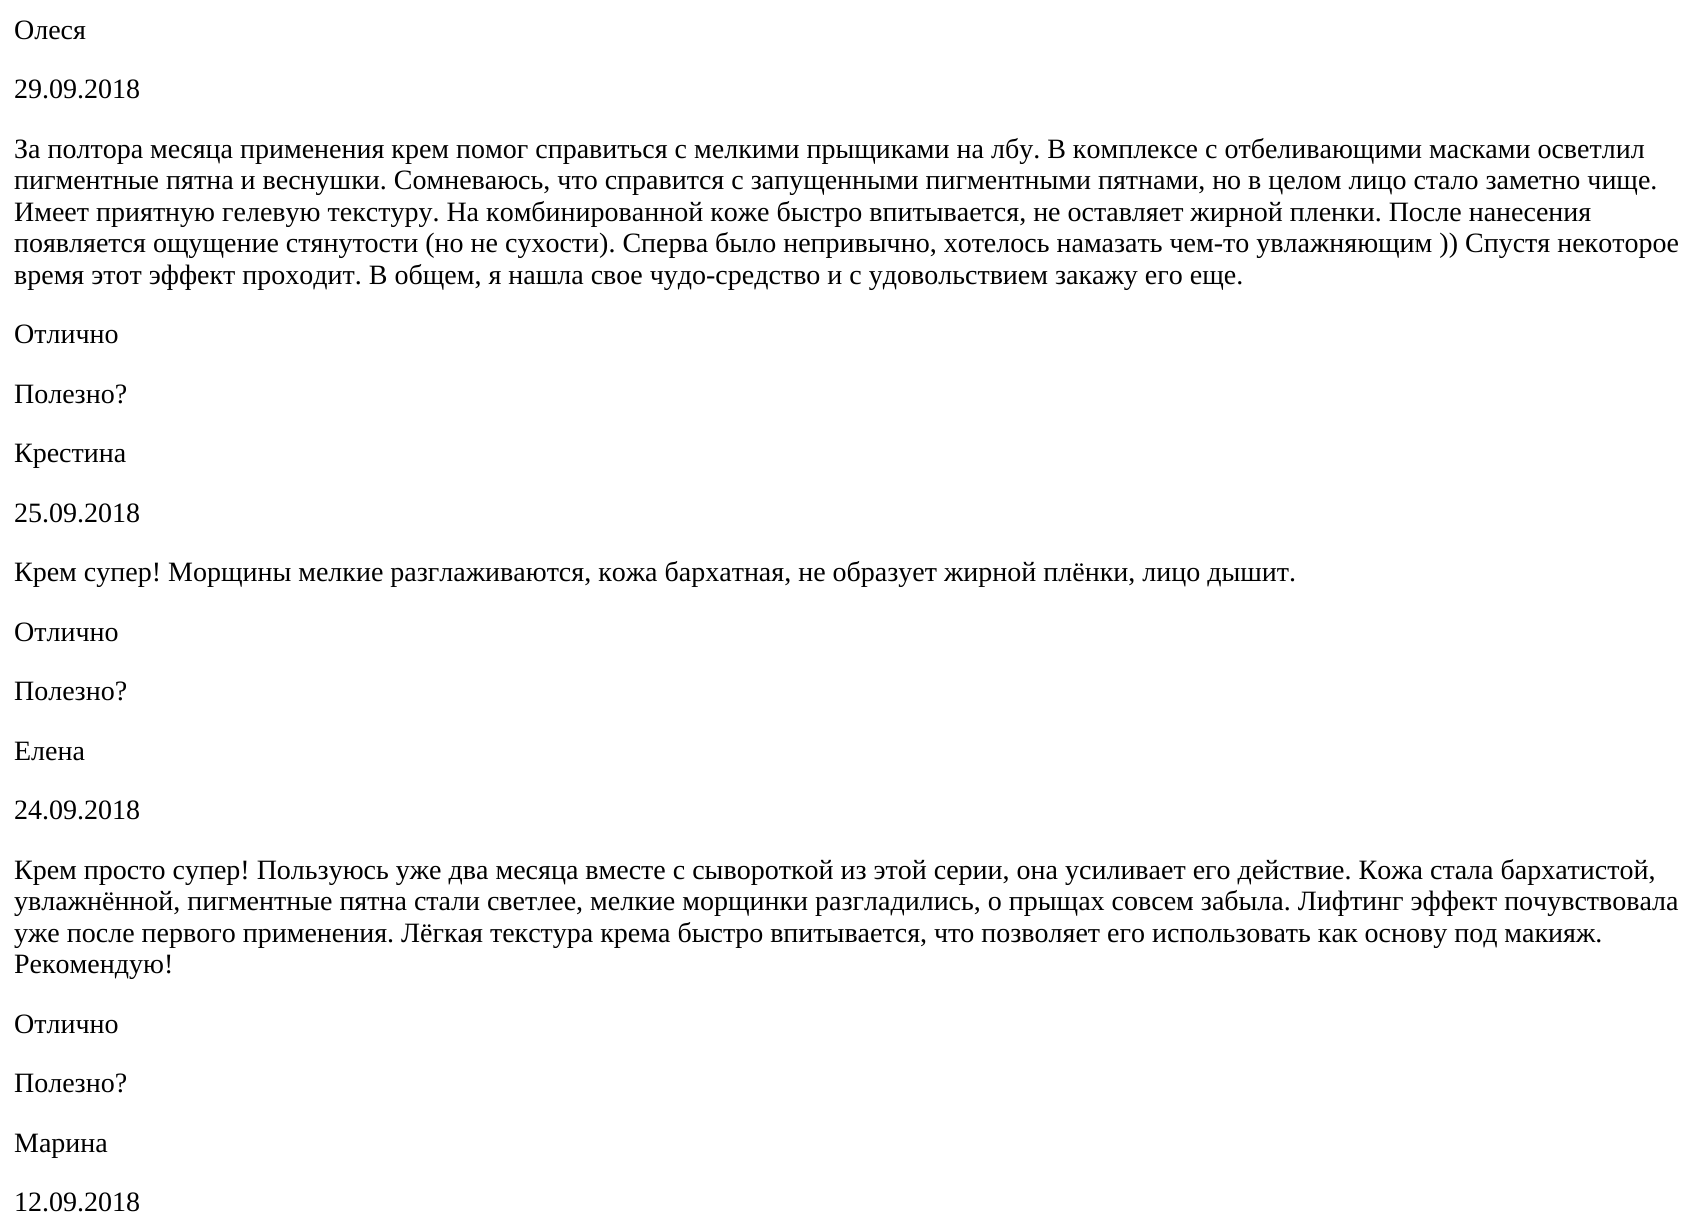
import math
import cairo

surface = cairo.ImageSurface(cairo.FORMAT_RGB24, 1693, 1215)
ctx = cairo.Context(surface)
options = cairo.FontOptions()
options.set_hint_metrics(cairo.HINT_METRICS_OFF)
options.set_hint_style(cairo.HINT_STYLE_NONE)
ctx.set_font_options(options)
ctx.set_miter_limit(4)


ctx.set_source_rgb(1, 1, 1)
ctx.paint()
ctx.select_font_face("Liberation Serif")
ctx.set_font_size(28)
ctx.set_source_rgb(0, 0, 0)
ctx.move_to(14, 39)
ctx.show_text("Олеся")
ctx.move_to(14, 98)
ctx.show_text("29.09.2018")
ctx.move_to(14, 158)
ctx.show_text("За полтора месяца применения крем помог справиться с мелкими прыщиками на лбу. В комплексе с отбеливающими масками осветлил")
ctx.move_to(14, 189)
ctx.show_text("пигментные пятна и веснушки. Сомневаюсь, что справится с запущенными пигментными пятнами, но в целом лицо стало заметно чище.")
ctx.move_to(14, 221)
ctx.show_text("Имеет приятную гелевую текстуру. На комбинированной коже быстро впитывается, не оставляет жирной пленки. После нанесения")
ctx.move_to(14, 252)
ctx.show_text("появляется ощущение стянутости (но не сухости). Сперва было непривычно, хотелось намазать чем-то увлажняющим )) Спустя некоторое")
ctx.move_to(14, 284)
ctx.show_text("время этот эффект проходит. В общем, я нашла свое чудо-средство и с удовольствием закажу его еще.")
ctx.move_to(14, 343)
ctx.show_text("Отлично")
ctx.move_to(14, 403)
ctx.show_text("Полезно?")
ctx.move_to(14, 462)
ctx.show_text("Крестина")
ctx.move_to(14, 522)
ctx.show_text("25.09.2018")
ctx.move_to(14, 581)
ctx.show_text("Крем супер! Морщины мелкие разглаживаются, кожа бархатная, не образует жирной плёнки, лицо дышит.")
ctx.move_to(14, 641)
ctx.show_text("Отлично")
ctx.move_to(14, 700)
ctx.show_text("Полезно?")
ctx.move_to(14, 760)
ctx.show_text("Елена")
ctx.move_to(14, 819)
ctx.show_text("24.09.2018")
ctx.move_to(14, 879)
ctx.show_text("Крем просто супер! Пользуюсь уже два месяца вместе с сывороткой из этой серии, она усиливает его действие. Кожа стала бархатистой,")
ctx.move_to(14, 910)
ctx.show_text("увлажнённой, пигментные пятна стали светлее, мелкие морщинки разгладились, о прыщах совсем забыла. Лифтинг эффект почувствовала")
ctx.move_to(14, 942)
ctx.show_text("уже после первого применения. Лёгкая текстура крема быстро впитывается, что позволяет его использовать как основу под макияж.")
ctx.move_to(14, 973)
ctx.show_text("Рекомендую!")
ctx.move_to(14, 1033)
ctx.show_text("Отлично")
ctx.move_to(14, 1092)
ctx.show_text("Полезно?")
ctx.move_to(14, 1152)
ctx.show_text("Марина")
ctx.move_to(14, 1211)
ctx.show_text("12.09.2018")
surface.write_to_png("page.png")
